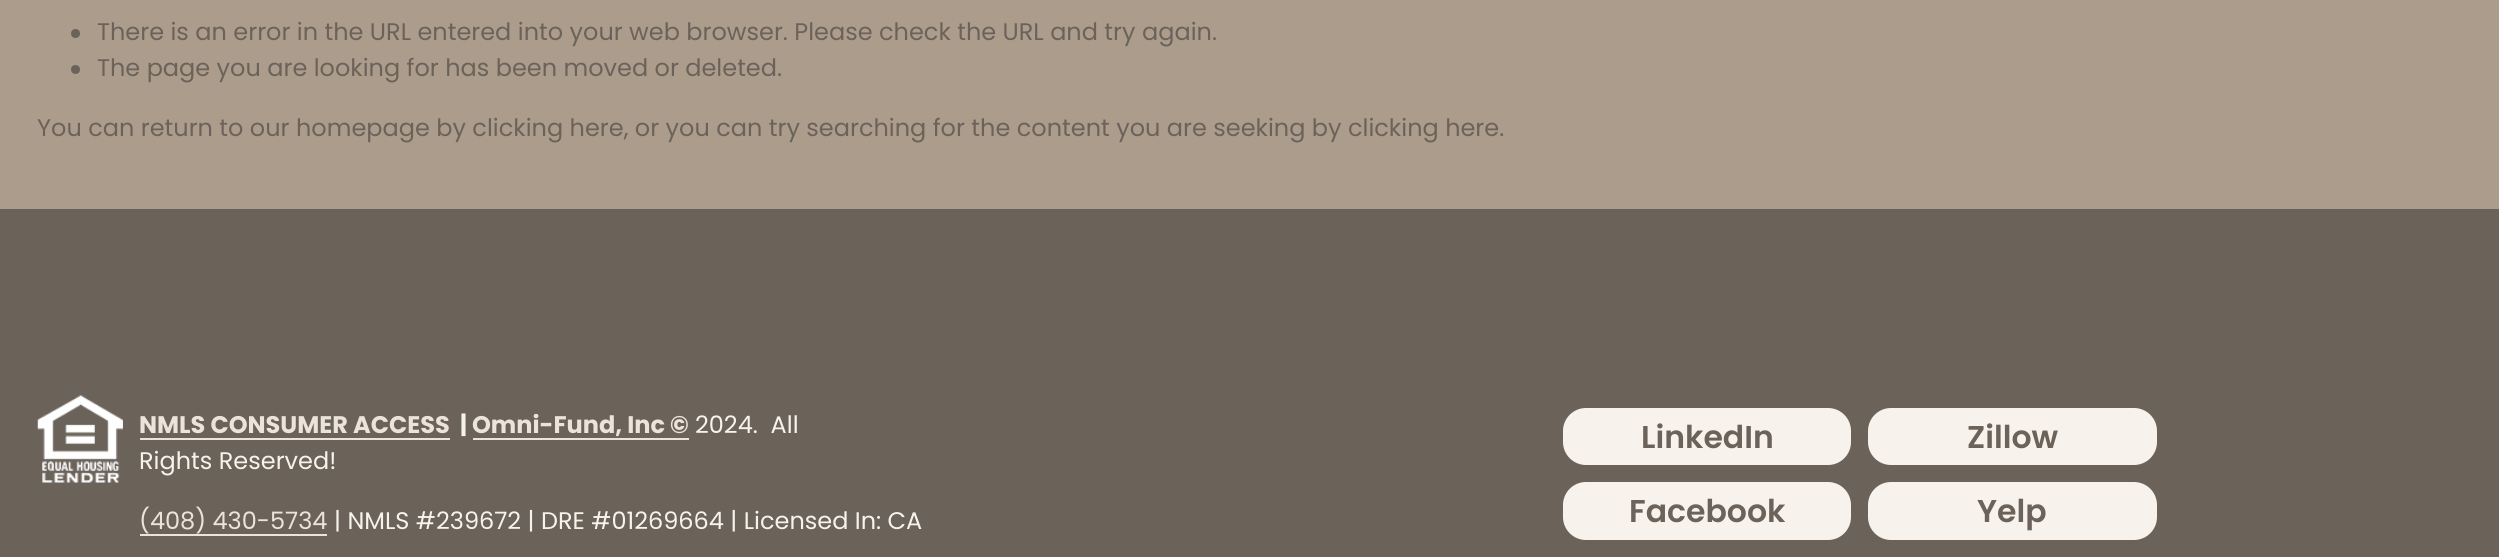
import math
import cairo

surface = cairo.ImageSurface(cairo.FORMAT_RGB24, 2499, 557)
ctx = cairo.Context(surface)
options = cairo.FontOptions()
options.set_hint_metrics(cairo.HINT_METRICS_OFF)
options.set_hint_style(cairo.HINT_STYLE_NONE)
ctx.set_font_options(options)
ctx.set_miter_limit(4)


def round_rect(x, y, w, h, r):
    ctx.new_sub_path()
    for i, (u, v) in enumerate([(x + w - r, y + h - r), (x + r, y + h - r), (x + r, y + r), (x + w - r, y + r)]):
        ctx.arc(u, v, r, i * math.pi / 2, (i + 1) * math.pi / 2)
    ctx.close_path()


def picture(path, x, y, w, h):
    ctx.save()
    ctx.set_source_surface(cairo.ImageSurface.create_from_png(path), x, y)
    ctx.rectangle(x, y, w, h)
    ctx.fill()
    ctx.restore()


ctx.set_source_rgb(0.675, 0.612, 0.549)
ctx.paint()
ctx.set_source_rgb(0.42, 0.388, 0.353)
ctx.arc(75.5, 33.5, 4.5, 0, 2 * math.pi)
ctx.fill()
ctx.select_font_face("Poppins")
ctx.set_font_size(24)
ctx.move_to(97, 40)
ctx.show_text("There is an error in the URL entered into your web browser. Please check the URL and try again.")
ctx.new_path()
ctx.arc(75.5, 69.5, 4.5, 0, 2 * math.pi)
ctx.fill()
ctx.move_to(97, 76)
ctx.show_text("The page you are looking for has been moved or deleted.")
ctx.move_to(37, 136)
ctx.show_text("You can return to our homepage by clicking here, or you can try searching for the content you are seeking by clicking here.")
ctx.rectangle(0, 209, 2499, 348)
ctx.fill()
picture("img1.png", 37, 395, 86, 88)
ctx.select_font_face("Poppins", cairo.FONT_SLANT_NORMAL, cairo.FONT_WEIGHT_BOLD)
ctx.set_source_rgb(0.925, 0.894, 0.855)
ctx.move_to(139, 433)
ctx.show_text("NMLS CONSUMER ACCESS")
ctx.rectangle(140, 438, 310, 2)
ctx.fill()
ctx.set_source_rgb(0.965, 0.953, 0.925)
ctx.move_to(460, 433)
ctx.show_text("|")
ctx.set_source_rgb(0.925, 0.894, 0.855)
ctx.move_to(472, 433)
ctx.show_text("Omni-Fund, Inc ©")
ctx.rectangle(473, 438, 216, 2)
ctx.fill()
ctx.select_font_face("Poppins")
ctx.set_source_rgb(0.965, 0.953, 0.925)
ctx.move_to(695, 433)
ctx.show_text("2024.  All")
ctx.move_to(139, 469)
ctx.show_text("Rights Reserved!")
ctx.set_source_rgb(0.925, 0.894, 0.855)
ctx.move_to(139, 529)
ctx.show_text("(408) 430-5734")
ctx.rectangle(140, 534, 187, 2)
ctx.fill()
ctx.set_source_rgb(0.965, 0.953, 0.925)
ctx.move_to(334, 529)
ctx.show_text("| NMLS #239672 | DRE #01269664 | Licensed In: CA")
round_rect(1563, 408, 288, 57, 23)
ctx.fill()
ctx.select_font_face("Poppins SemiBold")
ctx.set_font_size(31.5)
ctx.set_source_rgb(0.42, 0.388, 0.353)
ctx.move_to(1641, 448)
ctx.show_text("LinkedIn")
ctx.set_source_rgb(0.965, 0.953, 0.925)
round_rect(1868, 408, 289, 57, 23)
ctx.fill()
ctx.set_source_rgb(0.42, 0.388, 0.353)
ctx.move_to(1967, 448)
ctx.show_text("Zillow")
ctx.set_source_rgb(0.965, 0.953, 0.925)
round_rect(1563, 482, 288, 58, 23)
ctx.fill()
ctx.set_source_rgb(0.42, 0.388, 0.353)
ctx.move_to(1629, 522)
ctx.show_text("Facebook")
ctx.set_source_rgb(0.965, 0.953, 0.925)
round_rect(1868, 482, 289, 58, 23)
ctx.fill()
ctx.set_source_rgb(0.42, 0.388, 0.353)
ctx.move_to(1977, 522)
ctx.show_text("Yelp")
surface.write_to_png("page.png")
